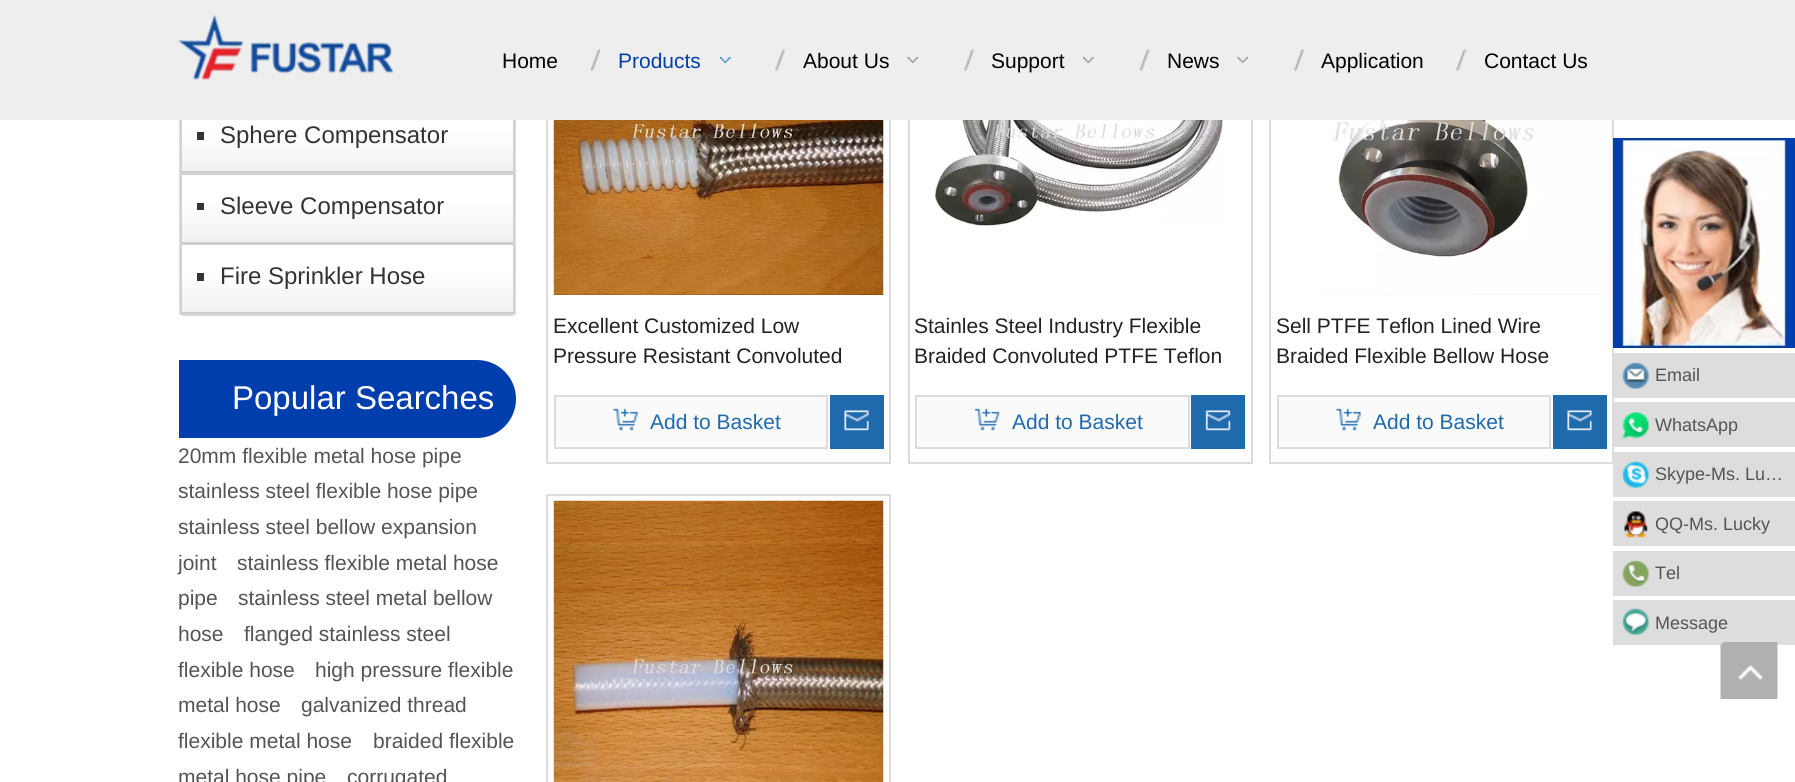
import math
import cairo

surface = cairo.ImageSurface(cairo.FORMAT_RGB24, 1795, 782)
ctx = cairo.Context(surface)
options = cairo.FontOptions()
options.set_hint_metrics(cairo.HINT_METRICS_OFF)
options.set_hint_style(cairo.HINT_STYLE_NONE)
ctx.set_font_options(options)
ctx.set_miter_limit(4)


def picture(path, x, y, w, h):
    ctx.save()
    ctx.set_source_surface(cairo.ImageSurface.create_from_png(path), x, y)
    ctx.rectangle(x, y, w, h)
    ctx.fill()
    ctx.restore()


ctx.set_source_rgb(1, 1, 1)
ctx.paint()
gradient = cairo.LinearGradient(347, 103, 347, 173)
gradient.add_color_stop_rgba(0, 1, 1, 1, 1)
gradient.add_color_stop_rgba(0.5, 0.988, 0.992, 0.992, 1)
gradient.add_color_stop_rgba(1, 0.941, 0.941, 0.941, 1)
ctx.set_source(gradient)
ctx.rectangle(182, 132, 331, 39)
ctx.fill()
gradient = cairo.LinearGradient(347, 174, 347, 243)
gradient.add_color_stop_rgba(0, 1, 1, 1, 1)
gradient.add_color_stop_rgba(0.5, 0.988, 0.992, 0.992, 1)
gradient.add_color_stop_rgba(1, 0.941, 0.941, 0.941, 1)
ctx.set_source(gradient)
ctx.rectangle(182, 203, 331, 39)
ctx.fill()
ctx.set_source_rgb(0.824, 0.824, 0.824)
ctx.rectangle(182, 173, 331, 2)
ctx.fill()
gradient = cairo.LinearGradient(347, 245, 347, 314)
gradient.add_color_stop_rgba(0, 1, 1, 1, 1)
gradient.add_color_stop_rgba(0.5, 0.988, 0.992, 0.992, 1)
gradient.add_color_stop_rgba(1, 0.941, 0.941, 0.941, 1)
ctx.set_source(gradient)
ctx.rectangle(182, 274, 331, 38)
ctx.fill()
ctx.set_source_rgb(0.824, 0.824, 0.824)
ctx.rectangle(182, 244, 331, 1)
ctx.fill()
ctx.rectangle(180, -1, 335, 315)
ctx.set_source_rgb(0.867, 0.867, 0.867)
ctx.stroke()
ctx.rectangle(547, -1, 343, 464)
ctx.set_source_rgb(0.863, 0.863, 0.863)
ctx.stroke()
ctx.rectangle(909, -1, 343, 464)
ctx.stroke()
ctx.rectangle(1270, -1, 343, 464)
ctx.stroke()
ctx.set_source_rgb(0.933, 0.933, 0.933)
ctx.rectangle(0, 0, 1795, 120)
ctx.fill()
picture("img1.png", 178, 15, 215, 65)
ctx.select_font_face("Liberation Sans")
ctx.set_font_size(21)
ctx.set_source_rgb(0, 0, 0)
ctx.move_to(502, 68)
ctx.show_text("Home")
picture("img2.png", 591, 49, 9, 22)
ctx.set_source_rgb(0, 0.243, 0.678)
ctx.move_to(618, 68)
ctx.show_text("Products")
picture("img3.png", 720, 57, 11, 6)
picture("img4.png", 775, 49, 10, 22)
ctx.set_source_rgb(0, 0, 0)
ctx.move_to(803, 68)
ctx.show_text("About Us")
picture("img5.png", 907, 57, 11, 6)
picture("img4.png", 964, 49, 10, 22)
ctx.move_to(991, 68)
ctx.show_text("Support")
picture("img6.png", 1083, 57, 11, 6)
picture("img2.png", 1140, 49, 9, 22)
ctx.move_to(1167, 68)
ctx.show_text("News")
picture("img5.png", 1237, 57, 11, 6)
picture("img4.png", 1294, 49, 10, 22)
ctx.move_to(1321, 68)
ctx.show_text("Application")
picture("img4.png", 1456, 49, 10, 22)
ctx.move_to(1484, 68)
ctx.show_text("Contact Us")
ctx.set_source_rgb(0.824, 0.824, 0.824)
ctx.rectangle(513, 120, 2, 194)
ctx.fill()
ctx.rectangle(180, 120, 2, 194)
ctx.fill()
ctx.set_source_rgb(0.8, 0.8, 0.8)
ctx.rectangle(182, 171, 331, 2)
ctx.fill()
ctx.set_source_rgb(0.2, 0.2, 0.2)
ctx.rectangle(197, 132, 7, 8)
ctx.fill()
ctx.set_font_size(24)
ctx.move_to(220, 143)
ctx.show_text("Sphere Compensator")
ctx.set_source_rgb(0.8, 0.8, 0.8)
ctx.rectangle(182, 242, 331, 2)
ctx.fill()
ctx.set_source_rgb(0.2, 0.2, 0.2)
ctx.rectangle(197, 203, 7, 7)
ctx.fill()
ctx.move_to(220, 214)
ctx.show_text("Sleeve Compensator")
ctx.set_source_rgb(0.8, 0.8, 0.8)
ctx.rectangle(182, 312, 331, 2)
ctx.fill()
ctx.set_source_rgb(0.2, 0.2, 0.2)
ctx.rectangle(197, 273, 7, 8)
ctx.fill()
ctx.set_source_rgb(0.824, 0.824, 0.824)
ctx.rectangle(182, 315, 331, 1)
ctx.fill()
ctx.set_source_rgb(0.2, 0.2, 0.2)
ctx.move_to(220, 284)
ctx.show_text("Fire Sprinkler Hose")
ctx.set_source_rgb(0, 0.243, 0.678)
ctx.new_path()
ctx.move_to(179, 360)
ctx.line_to(477, 360)
ctx.curve_to(498.5, 360, 516, 377.5, 516, 399)
ctx.curve_to(516, 420.5, 498.5, 438, 477, 438)
ctx.line_to(179, 438)
ctx.close_path()
ctx.fill()
ctx.set_font_size(33)
ctx.set_source_rgb(1, 1, 1)
ctx.move_to(232, 409)
ctx.show_text("Popular Searches")
ctx.set_font_size(21)
ctx.set_source_rgb(0.329, 0.329, 0.329)
ctx.move_to(178, 463)
ctx.show_text("20mm flexible metal hose pipe")
ctx.move_to(178, 498)
ctx.show_text("stainless steel flexible hose pipe")
ctx.move_to(178, 534)
ctx.show_text("stainless steel bellow expansion")
ctx.move_to(178, 570)
ctx.show_text("joint")
ctx.move_to(237, 570)
ctx.show_text("stainless flexible metal hose")
ctx.move_to(178, 605)
ctx.show_text("pipe")
ctx.move_to(238, 605)
ctx.show_text("stainless steel metal bellow")
ctx.move_to(178, 641)
ctx.show_text("hose")
ctx.move_to(244, 641)
ctx.show_text("flanged stainless steel")
ctx.move_to(178, 677)
ctx.show_text("flexible hose")
ctx.move_to(315, 677)
ctx.show_text("high pressure flexible")
ctx.move_to(178, 712)
ctx.show_text("metal hose")
ctx.move_to(301, 712)
ctx.show_text("galvanized thread")
ctx.move_to(178, 748)
ctx.show_text("flexible metal hose")
ctx.move_to(373, 748)
ctx.show_text("braided flexible")
ctx.move_to(178, 784)
ctx.show_text("metal hose pipe")
ctx.move_to(347, 784)
ctx.show_text("corrugated")
picture("img7.png", 553, 120, 331, 175)
ctx.set_source_rgb(0.133, 0.133, 0.133)
ctx.move_to(553, 333)
ctx.show_text("Excellent Customized Low")
ctx.move_to(553, 363)
ctx.show_text("Pressure Resistant Convoluted")
ctx.set_source_rgb(0.98, 0.98, 0.98)
ctx.rectangle(555, 396, 272, 52)
ctx.fill_preserve()
ctx.set_source_rgb(0.863, 0.863, 0.863)
ctx.stroke()
picture("img8.png", 613, 408, 25, 23)
ctx.set_source_rgb(0.122, 0.412, 0.678)
ctx.move_to(650, 429)
ctx.show_text("Add to Basket")
ctx.rectangle(830, 395, 54, 54)
ctx.fill()
picture("img9.png", 844, 410, 25, 21)
picture("img10.png", 934, 120, 289, 107)
ctx.set_source_rgb(0.133, 0.133, 0.133)
ctx.move_to(914, 333)
ctx.show_text("Stainles Steel Industry Flexible")
ctx.move_to(914, 363)
ctx.show_text("Braided Convoluted PTFE Teflon")
ctx.set_source_rgb(0.98, 0.98, 0.98)
ctx.rectangle(916, 396, 273, 52)
ctx.fill_preserve()
ctx.set_source_rgb(0.863, 0.863, 0.863)
ctx.stroke()
picture("img11.png", 974, 408, 26, 23)
ctx.set_source_rgb(0.122, 0.412, 0.678)
ctx.move_to(1012, 429)
ctx.show_text("Add to Basket")
ctx.rectangle(1191, 395, 54, 54)
ctx.fill()
picture("img12.png", 1205, 410, 26, 21)
picture("img13.png", 1324, 120, 283, 175)
ctx.set_source_rgb(0.133, 0.133, 0.133)
ctx.move_to(1276, 333)
ctx.show_text("Sell PTFE Teflon Lined Wire")
ctx.move_to(1276, 363)
ctx.show_text("Braided Flexible Bellow Hose")
ctx.set_source_rgb(0.98, 0.98, 0.98)
ctx.rectangle(1278, 396, 272, 52)
ctx.fill_preserve()
ctx.set_source_rgb(0.863, 0.863, 0.863)
ctx.stroke()
picture("img8.png", 1336, 408, 25, 23)
ctx.set_source_rgb(0.122, 0.412, 0.678)
ctx.move_to(1373, 429)
ctx.show_text("Add to Basket")
ctx.rectangle(1553, 395, 54, 54)
ctx.fill()
picture("img9.png", 1567, 410, 25, 21)
ctx.rectangle(547, 495, 343, 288)
ctx.set_source_rgb(0.863, 0.863, 0.863)
ctx.stroke()
picture("img14.png", 553, 500, 331, 282)
ctx.set_source_rgb(0, 0.243, 0.678)
ctx.rectangle(1613, 138, 182, 210)
ctx.fill()
picture("img15.png", 1620, 138, 168, 210)
ctx.set_source_rgb(0.867, 0.867, 0.867)
ctx.rectangle(1614, 353, 181, 45)
ctx.fill()
picture("img16.png", 1622, 362, 27, 27)
ctx.set_font_size(18)
ctx.set_source_rgb(0.329, 0.329, 0.329)
ctx.move_to(1655, 381)
ctx.show_text("Email")
ctx.set_source_rgb(0.867, 0.867, 0.867)
ctx.rectangle(1614, 402, 181, 45)
ctx.fill()
picture("img17.png", 1622, 412, 27, 27)
ctx.set_source_rgb(0.329, 0.329, 0.329)
ctx.move_to(1655, 431)
ctx.show_text("WhatsApp")
ctx.set_source_rgb(0.867, 0.867, 0.867)
ctx.rectangle(1613, 452, 182, 45)
ctx.fill()
picture("img18.png", 1622, 461, 27, 27)
ctx.set_source_rgb(0.329, 0.329, 0.329)
ctx.move_to(1655, 480)
ctx.show_text("Skype-Ms. Lu…")
ctx.set_source_rgb(0.867, 0.867, 0.867)
ctx.rectangle(1613, 501, 182, 45)
ctx.fill()
picture("img19.png", 1624, 511, 24, 27)
ctx.set_source_rgb(0.329, 0.329, 0.329)
ctx.move_to(1655, 530)
ctx.show_text("QQ-Ms. Lucky")
ctx.set_source_rgb(0.867, 0.867, 0.867)
ctx.rectangle(1613, 551, 182, 45)
ctx.fill()
picture("img20.png", 1622, 560, 27, 27)
ctx.set_source_rgb(0.329, 0.329, 0.329)
ctx.move_to(1655, 579)
ctx.show_text("Tel")
ctx.set_source_rgb(0.867, 0.867, 0.867)
ctx.rectangle(1613, 600, 182, 45)
ctx.fill()
picture("img21.png", 1622, 608, 27, 27)
ctx.set_source_rgb(0.329, 0.329, 0.329)
ctx.move_to(1655, 629)
ctx.show_text("Message")
picture("img22.png", 1720, 642, 58, 57)
surface.write_to_png("page.png")
